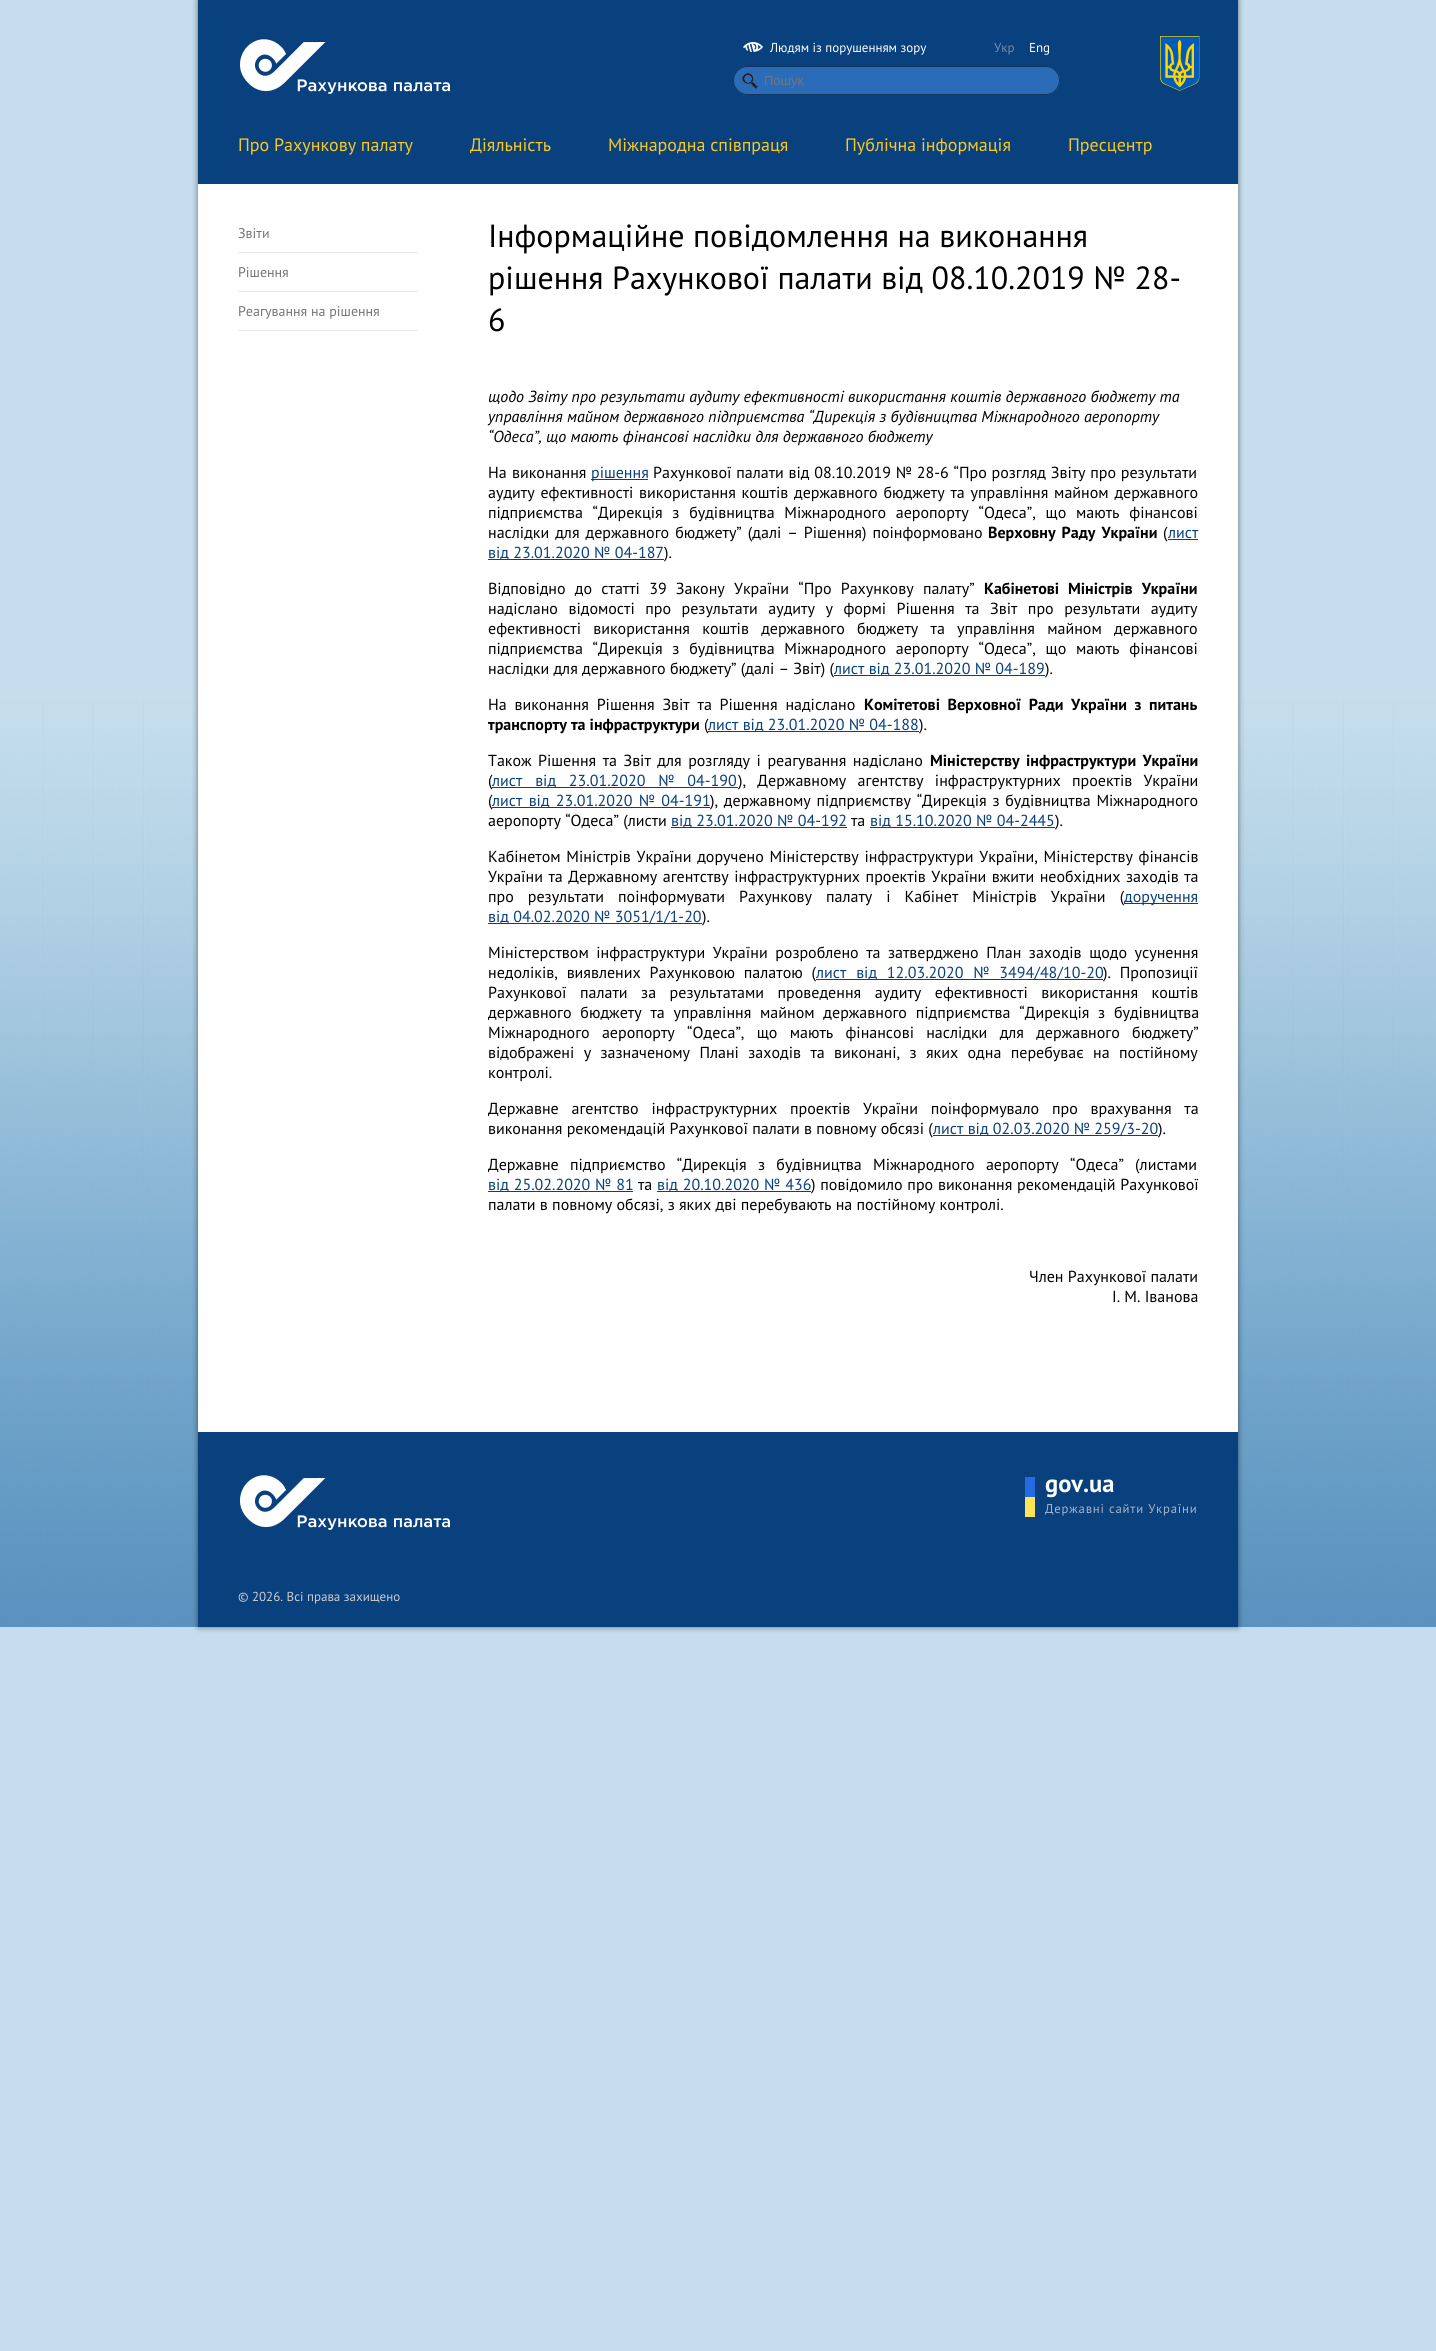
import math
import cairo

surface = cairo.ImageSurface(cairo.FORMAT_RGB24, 1436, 2351)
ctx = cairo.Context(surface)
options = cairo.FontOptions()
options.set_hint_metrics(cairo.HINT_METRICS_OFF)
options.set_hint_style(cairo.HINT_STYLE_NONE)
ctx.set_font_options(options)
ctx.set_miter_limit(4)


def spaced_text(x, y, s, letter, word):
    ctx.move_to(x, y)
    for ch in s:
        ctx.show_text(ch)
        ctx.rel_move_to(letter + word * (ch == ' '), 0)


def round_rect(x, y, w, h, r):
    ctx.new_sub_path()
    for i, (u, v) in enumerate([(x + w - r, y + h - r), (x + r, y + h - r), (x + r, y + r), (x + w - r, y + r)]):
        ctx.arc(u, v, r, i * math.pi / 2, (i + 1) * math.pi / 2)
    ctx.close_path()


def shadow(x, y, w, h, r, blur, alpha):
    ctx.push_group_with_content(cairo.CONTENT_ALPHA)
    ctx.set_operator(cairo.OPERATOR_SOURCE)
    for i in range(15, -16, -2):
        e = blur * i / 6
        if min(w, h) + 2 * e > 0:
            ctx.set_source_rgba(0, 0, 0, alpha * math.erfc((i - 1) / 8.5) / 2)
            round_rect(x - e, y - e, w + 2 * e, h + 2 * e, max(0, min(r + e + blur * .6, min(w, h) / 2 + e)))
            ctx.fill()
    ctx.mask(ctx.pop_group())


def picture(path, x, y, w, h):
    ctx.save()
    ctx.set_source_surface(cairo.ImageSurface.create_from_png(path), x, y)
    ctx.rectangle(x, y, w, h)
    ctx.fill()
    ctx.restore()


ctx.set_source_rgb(0.773, 0.867, 0.922)
ctx.paint()
picture("img1.png", 0, 700, 1436, 927)
ctx.set_source_rgb(0, 0, 0)
shadow(198, 0, 1040, 1627, 0, 3, 0.5)
ctx.set_source_rgb(0.039, 0.251, 0.494)
ctx.rectangle(198, 0, 1040, 184)
ctx.fill()
picture("img2.png", 240, 39, 210, 55)
picture("img3.png", 743, 42, 20, 10)
ctx.select_font_face("PT Sans")
ctx.set_font_size(13)
ctx.set_source_rgb(1, 1, 1)
ctx.move_to(770, 52)
ctx.show_text("Людям із порушенням зору")
ctx.set_source_rgb(0.471, 0.545, 0.671)
ctx.move_to(994, 52)
ctx.show_text("Укр")
ctx.set_source_rgb(1, 1, 1)
ctx.move_to(1029, 52)
ctx.show_text("Eng")
ctx.set_source_rgb(0.169, 0.424, 0.725)
round_rect(733, 66, 327, 29, 14.5)
ctx.fill()
picture("img4.png", 742, 73, 16, 16)
round_rect(733.5, 66.5, 326, 28, 14)
ctx.set_source_rgb(0.082, 0.208, 0.357)
ctx.set_line_width(1)
ctx.stroke()
ctx.select_font_face("Liberation Sans")
ctx.set_source_rgb(0.459, 0.459, 0.459)
ctx.move_to(764, 85)
ctx.show_text("Пошук")
picture("img5.png", 1160, 36, 40, 55)
ctx.select_font_face("PT Sans")
ctx.set_font_size(18)
ctx.set_source_rgb(0.969, 0.788, 0.129)
ctx.move_to(238, 151)
ctx.show_text("Про Рахункову палату")
ctx.move_to(470, 151)
ctx.show_text("Діяльність")
ctx.move_to(608, 151)
ctx.show_text("Міжнародна співпраця")
ctx.move_to(845, 151)
ctx.show_text("Публічна інформація")
ctx.move_to(1068, 151)
ctx.show_text("Пресцентр")
ctx.set_source_rgb(1, 1, 1)
ctx.rectangle(198, 184, 1040, 1248)
ctx.fill()
ctx.set_source_rgb(0.914, 0.914, 0.918)
ctx.rectangle(238, 252, 180, 1)
ctx.fill()
ctx.set_font_size(14)
ctx.set_source_rgb(0.459, 0.459, 0.459)
ctx.move_to(238, 238)
ctx.show_text("Звіти")
ctx.set_source_rgb(0.914, 0.914, 0.918)
ctx.rectangle(238, 291, 180, 1)
ctx.fill()
ctx.set_source_rgb(0.459, 0.459, 0.459)
ctx.move_to(238, 277)
ctx.show_text("Рішення")
ctx.set_source_rgb(0.914, 0.914, 0.918)
ctx.rectangle(238, 330, 180, 1)
ctx.fill()
ctx.set_source_rgb(0.459, 0.459, 0.459)
ctx.move_to(238, 316)
ctx.show_text("Реагування на рішення")
ctx.set_font_size(32)
ctx.set_source_rgb(0, 0, 0)
ctx.move_to(488, 247)
ctx.show_text("Інформаційне повідомлення на виконання")
ctx.move_to(488, 289)
ctx.show_text("рішення Рахункової палати від 08.10.2019 № 28-")
ctx.move_to(488, 331)
ctx.show_text("6")
ctx.select_font_face("PT Sans", cairo.FONT_SLANT_ITALIC)
ctx.set_font_size(16)
ctx.move_to(488, 402)
ctx.show_text("щодо Звіту про результати аудиту ефективності використання коштів державного бюджету та")
ctx.move_to(488, 422)
ctx.show_text("управління майном державного підприємства “Дирекція з будівництва Міжнародного аеропорту")
ctx.move_to(488, 442)
ctx.show_text("“Одеса”, що мають фінансові наслідки для державного бюджету")
ctx.select_font_face("PT Sans")
spaced_text(488, 478, "На виконання", 0, 1)
ctx.set_source_rgb(0.039, 0.251, 0.494)
ctx.rectangle(591, 479, 57, 1)
ctx.fill()
ctx.move_to(591, 478)
ctx.show_text("рішення")
ctx.set_source_rgb(0, 0, 0)
spaced_text(653, 478, "Рахункової палати від 08.10.2019 № 28-6 “Про розгляд Звіту про результати", 0, 0.5)
spaced_text(488, 498, "аудиту ефективності використання коштів державного бюджету та управління майном державного", 0, 1.5)
spaced_text(488, 518, "підприємства “Дирекція з будівництва Міжнародного аеропорту “Одеса”, що мають фінансові", 0, 5.5)
spaced_text(488, 538, "наслідки для державного бюджету” (далі – Рішення) поінформовано", 0, 1.75)
ctx.select_font_face("PT Sans", cairo.FONT_SLANT_NORMAL, cairo.FONT_WEIGHT_BOLD)
spaced_text(988, 538, "Верховну Раду України", 0, 2)
ctx.select_font_face("PT Sans")
ctx.move_to(1163, 538)
ctx.show_text("(")
ctx.set_source_rgb(0.039, 0.251, 0.494)
ctx.move_to(1168, 538)
ctx.show_text("лист")
ctx.rectangle(1168, 539, 30, 1)
ctx.fill()
ctx.rectangle(488, 559, 176, 1)
ctx.fill()
ctx.move_to(488, 558)
ctx.show_text("від 23.01.2020 № 04-187")
ctx.set_source_rgb(0, 0, 0)
ctx.move_to(664, 558)
ctx.show_text(").")
spaced_text(488, 594, "Відповідно до статті 39 Закону України “Про Рахункову палату”", 0, 5)
ctx.select_font_face("PT Sans", cairo.FONT_SLANT_NORMAL, cairo.FONT_WEIGHT_BOLD)
ctx.move_to(984, 594)
ctx.show_text("Кабінетові")
spaced_text(1068, 594, "Міністрів України", 0, 5)
ctx.select_font_face("PT Sans")
spaced_text(488, 614, "надіслано відомості про результати аудиту у формі Рішення та Звіт про результати аудиту", 0, 6.25)
spaced_text(488, 634, "ефективності використання коштів державного бюджету та управління майном державного", 0, 8)
spaced_text(488, 654, "підприємства “Дирекція з будівництва Міжнародного аеропорту “Одеса”, що мають фінансові", 0, 5.5)
ctx.move_to(488, 674)
ctx.show_text("наслідки для державного бюджету” (далі – Звіт) (")
ctx.set_source_rgb(0.039, 0.251, 0.494)
ctx.rectangle(834, 675, 211, 1)
ctx.fill()
ctx.move_to(834, 674)
ctx.show_text("лист від 23.01.2020 № 04-189")
ctx.set_source_rgb(0, 0, 0)
ctx.move_to(1045, 674)
ctx.show_text(").")
spaced_text(488, 710, "На виконання Рішення Звіт та Рішення надіслано", 0, 3.5)
ctx.select_font_face("PT Sans", cairo.FONT_SLANT_NORMAL, cairo.FONT_WEIGHT_BOLD)
spaced_text(864, 710, "Комітетові Верховної Ради України з питань", 0, 3.5)
ctx.move_to(488, 730)
ctx.show_text("транспорту та інфраструктури")
ctx.select_font_face("PT Sans")
ctx.move_to(704, 730)
ctx.show_text("(")
ctx.set_source_rgb(0.039, 0.251, 0.494)
ctx.rectangle(708, 731, 211, 1)
ctx.fill()
ctx.move_to(708, 730)
ctx.show_text("лист від 23.01.2020 № 04-188")
ctx.set_source_rgb(0, 0, 0)
ctx.move_to(919, 730)
ctx.show_text(").")
spaced_text(488, 766, "Також Рішення та Звіт для розгляду і реагування надіслано", 0, 2.25)
ctx.select_font_face("PT Sans", cairo.FONT_SLANT_NORMAL, cairo.FONT_WEIGHT_BOLD)
spaced_text(930, 766, "Міністерству інфраструктури України", 0, 2.25)
ctx.select_font_face("PT Sans")
ctx.move_to(488, 786)
ctx.show_text("(")
ctx.set_source_rgb(0.039, 0.251, 0.494)
ctx.rectangle(492, 787, 246, 1)
ctx.fill()
spaced_text(492, 786, "лист від 23.01.2020 № 04-190", 0, 8.5)
ctx.set_source_rgb(0, 0, 0)
spaced_text(738, 786, "), Державному агентству інфраструктурних проектів України", 0, 7)
ctx.move_to(488, 806)
ctx.show_text("(")
ctx.set_source_rgb(0.039, 0.251, 0.494)
ctx.rectangle(492, 807, 218, 1)
ctx.fill()
spaced_text(492, 806, "лист від 23.01.2020 № 04-191", 0, 2)
ctx.set_source_rgb(0, 0, 0)
spaced_text(710, 806, "), державному підприємству “Дирекція з будівництва Міжнародного", 0, 1.5)
ctx.move_to(488, 826)
ctx.show_text("аеропорту “Одеса” (листи")
ctx.set_source_rgb(0.039, 0.251, 0.494)
ctx.rectangle(671, 827, 176, 1)
ctx.fill()
ctx.move_to(671, 826)
ctx.show_text("від 23.01.2020 № 04-192")
ctx.set_source_rgb(0, 0, 0)
ctx.move_to(851, 826)
ctx.show_text("та")
ctx.set_source_rgb(0.039, 0.251, 0.494)
ctx.rectangle(870, 827, 185, 1)
ctx.fill()
ctx.move_to(870, 826)
ctx.show_text("від 15.10.2020 № 04-2445")
ctx.set_source_rgb(0, 0, 0)
ctx.move_to(1055, 826)
ctx.show_text(").")
spaced_text(488, 862, "Кабінетом Міністрів України доручено Міністерству інфраструктури України, Міністерству фінансів", 0, 1.5)
spaced_text(488, 882, "України та Державному агентству інфраструктурних проектів України вжити необхідних заходів та", 0, 1.25)
spaced_text(488, 902, "про результати поінформувати Рахункову палату і Кабінет Міністрів України (", 0, 9.75)
ctx.set_source_rgb(0.039, 0.251, 0.494)
ctx.rectangle(1124, 903, 74, 1)
ctx.fill()
ctx.move_to(1124, 902)
ctx.show_text("доручення")
ctx.rectangle(488, 923, 214, 1)
ctx.fill()
ctx.move_to(488, 922)
ctx.show_text("від 04.02.2020 № 3051/1/1-20")
ctx.set_source_rgb(0, 0, 0)
ctx.move_to(702, 922)
ctx.show_text(").")
spaced_text(488, 958, "Міністерством інфраструктури України розроблено та затверджено План заходів щодо усунення", 0, 3.25)
spaced_text(488, 978, "недоліків, виявлених Рахунковою палатою (", 0, 4.5)
ctx.set_source_rgb(0.039, 0.251, 0.494)
ctx.rectangle(816, 979, 287, 1)
ctx.fill()
spaced_text(816, 978, "лист від 12.03.2020 № 3494/48/10-20", 0, 5.5)
ctx.set_source_rgb(0, 0, 0)
spaced_text(1103, 978, "). Пропозиції", 0, 4.5)
spaced_text(488, 998, "Рахункової палати за результатами проведення аудиту ефективності використання коштів", 0, 9.25)
spaced_text(488, 1018, "державного бюджету та управління майном державного підприємства “Дирекція з будівництва", 0, 4.5)
spaced_text(488, 1038, "Міжнародного аеропорту “Одеса”, що мають фінансові наслідки для державного бюджету”", 0, 8)
spaced_text(488, 1058, "відображені у зазначеному Плані заходів та виконані, з яких одна перебуває на постійному", 0, 5.1)
ctx.move_to(488, 1078)
ctx.show_text("контролі.")
spaced_text(488, 1114, "Державне агентство інфраструктурних проектів України поінформувало про врахування та", 0, 8.5)
ctx.move_to(488, 1134)
ctx.show_text("виконання рекомендацій Рахункової палати в повному обсязі (")
ctx.set_source_rgb(0.039, 0.251, 0.494)
ctx.rectangle(933, 1135, 225, 1)
ctx.fill()
ctx.move_to(933, 1134)
ctx.show_text("лист від 02.03.2020 № 259/3-20")
ctx.set_source_rgb(0, 0, 0)
ctx.move_to(1158, 1134)
ctx.show_text(").")
spaced_text(488, 1170, "Державне підприємство “Дирекція з будівництва Міжнародного аеропорту “Одеса” (листами", 0, 7)
ctx.set_source_rgb(0.039, 0.251, 0.494)
ctx.rectangle(488, 1191, 145, 1)
ctx.fill()
spaced_text(488, 1190, "від 25.02.2020 № 81", 0, 0.5)
ctx.set_source_rgb(0, 0, 0)
ctx.move_to(638, 1190)
ctx.show_text("та")
ctx.set_source_rgb(0.039, 0.251, 0.494)
ctx.rectangle(657, 1191, 154, 1)
ctx.fill()
spaced_text(657, 1190, "від 20.10.2020 № 436", 0, 0.5)
ctx.set_source_rgb(0, 0, 0)
spaced_text(811, 1190, ") повідомило про виконання рекомендацій Рахункової", 0, 0.5)
ctx.move_to(488, 1210)
ctx.show_text("палати в повному обсязі, з яких дві перебувають на постійному контролі.")
ctx.move_to(1029, 1282)
ctx.show_text("Член Рахункової палати")
ctx.move_to(1112, 1302)
ctx.show_text("І. М. Іванова")
ctx.set_source_rgb(0.039, 0.251, 0.494)
ctx.rectangle(198, 1432, 1040, 195)
ctx.fill()
ctx.set_source_rgb(0.149, 0.412, 0.89)
ctx.rectangle(1025, 1477, 10, 20)
ctx.fill()
ctx.set_source_rgb(1, 0.89, 0.345)
ctx.rectangle(1025, 1497, 10, 20)
ctx.fill()
ctx.select_font_face("PT Sans", cairo.FONT_SLANT_NORMAL, cairo.FONT_WEIGHT_BOLD)
ctx.set_font_size(24.5)
ctx.set_source_rgb(1, 1, 1)
ctx.move_to(1045, 1492)
ctx.show_text("gov.ua")
ctx.select_font_face("PT Sans")
ctx.set_font_size(12.75)
ctx.set_source_rgb(0.667, 0.702, 0.776)
spaced_text(1045, 1513, "Державні сайти України", 0.8, 0)
picture("img2.png", 240, 1475, 210, 55)
ctx.set_font_size(13)
ctx.set_source_rgb(0.8, 0.8, 0.8)
ctx.move_to(238, 1601)
ctx.show_text("© 2026. Всі права захищено")
surface.write_to_png("page.png")
